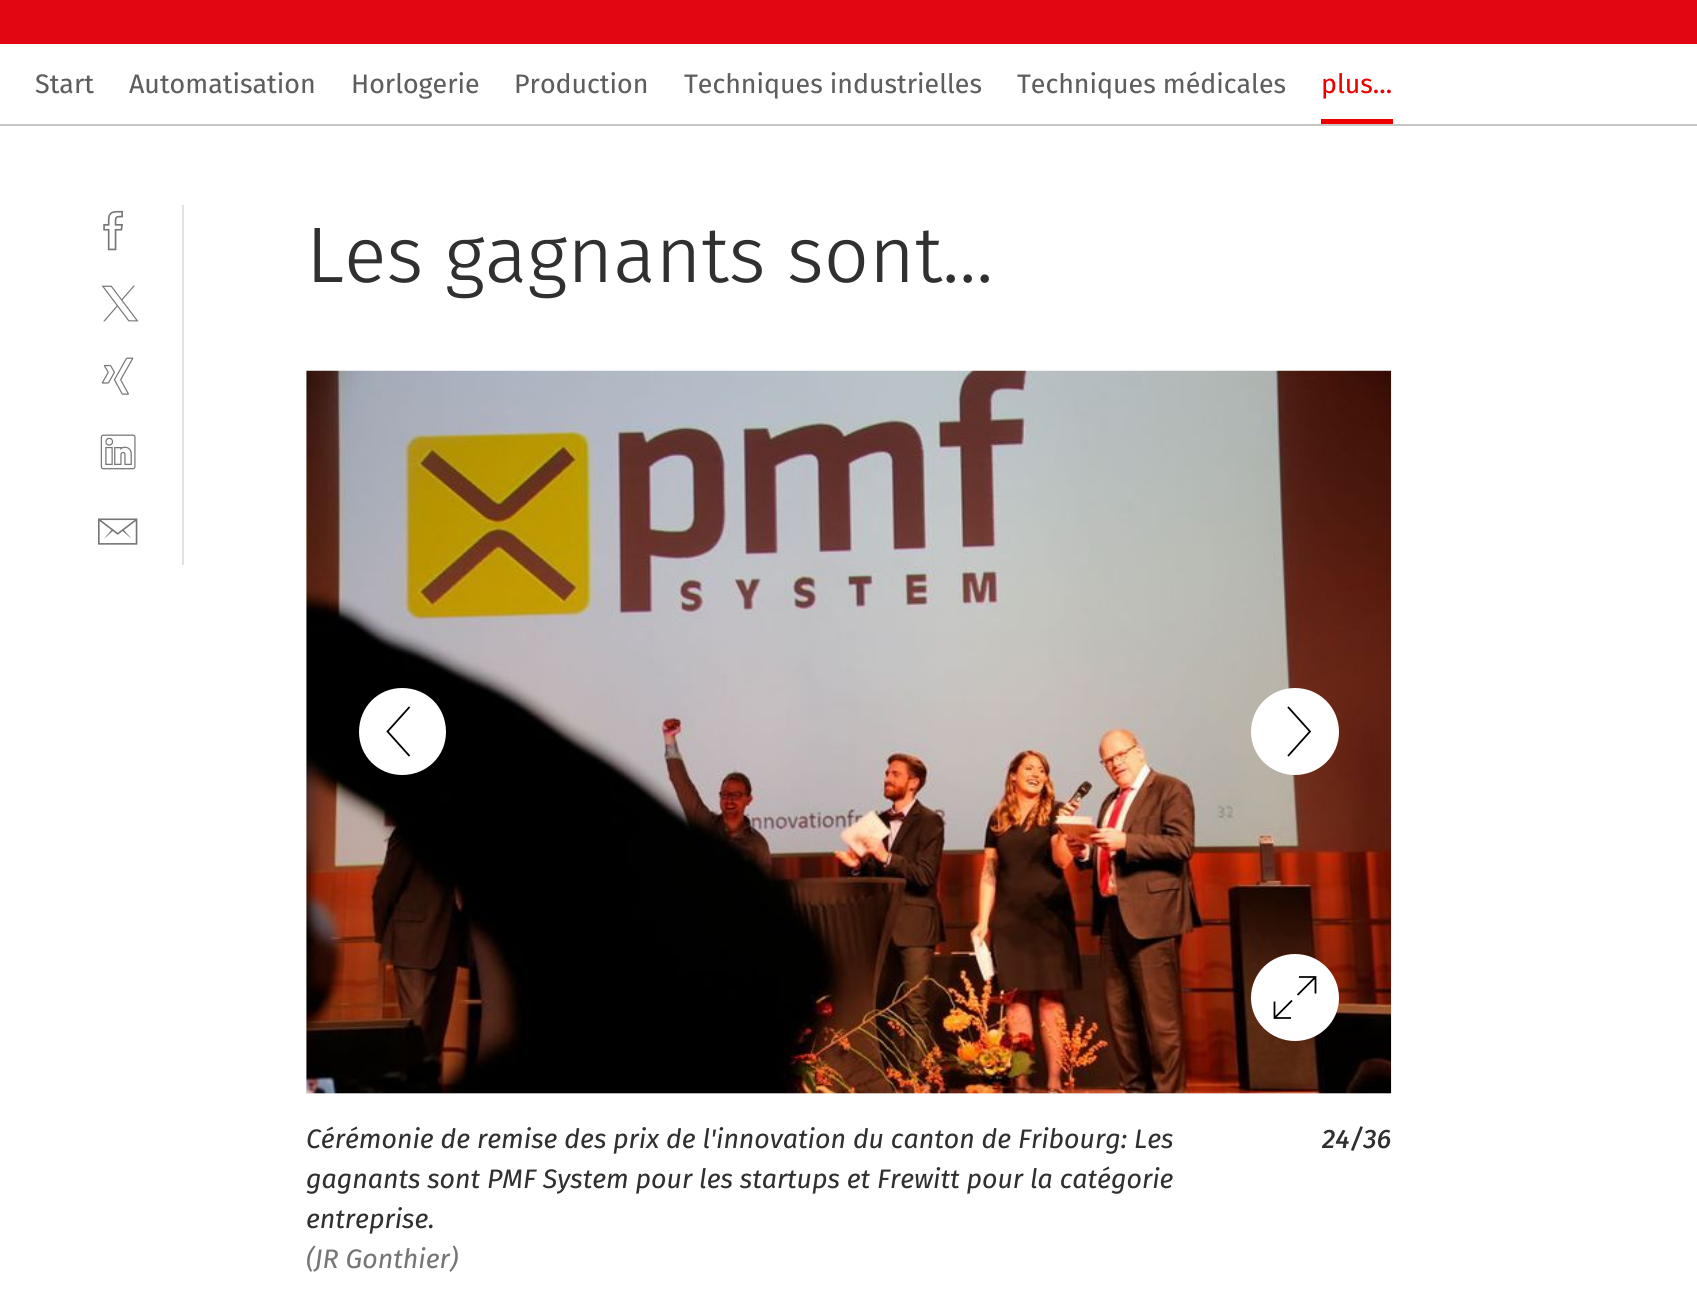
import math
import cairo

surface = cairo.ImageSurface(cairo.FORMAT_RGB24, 1697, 1291)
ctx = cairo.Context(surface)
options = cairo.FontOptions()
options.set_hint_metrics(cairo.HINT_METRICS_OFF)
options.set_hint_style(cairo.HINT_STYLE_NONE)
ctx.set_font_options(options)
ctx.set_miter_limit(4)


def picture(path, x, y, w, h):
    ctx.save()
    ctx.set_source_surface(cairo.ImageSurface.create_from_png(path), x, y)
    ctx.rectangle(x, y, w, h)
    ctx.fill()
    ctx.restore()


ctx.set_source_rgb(1, 1, 1)
ctx.paint()
ctx.set_source_rgb(0.776, 0.776, 0.776)
ctx.rectangle(0, 124, 1697, 2)
ctx.fill()
ctx.set_source_rgb(0.886, 0.024, 0.075)
ctx.rectangle(0, 0, 1697, 44)
ctx.fill()
ctx.select_font_face("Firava")
ctx.set_font_size(26.75)
ctx.set_source_rgb(0.369, 0.369, 0.369)
ctx.move_to(35, 93)
ctx.show_text("Start")
ctx.move_to(129, 93)
ctx.show_text("Automatisation")
ctx.move_to(351, 93)
ctx.show_text("Horlogerie")
ctx.move_to(514, 93)
ctx.show_text("Production")
ctx.move_to(684, 93)
ctx.show_text("Techniques industrielles")
ctx.move_to(1017, 93)
ctx.show_text("Techniques médicales")
ctx.set_source_rgb(0.933, 0, 0)
ctx.rectangle(1321, 119, 72, 5)
ctx.fill()
ctx.move_to(1321, 93)
ctx.show_text("plus...")
ctx.set_source_rgb(0.886, 0.886, 0.886)
ctx.rectangle(182, 205, 2, 360)
ctx.fill()
picture("img1.png", 103, 210, 20, 41)
picture("img2.png", 101, 285, 38, 37)
picture("img3.png", 101, 357, 33, 38)
picture("img4.png", 100, 434, 36, 36)
picture("img5.png", 98, 518, 40, 27)
ctx.select_font_face("Firava Light")
ctx.set_font_size(78.75)
ctx.set_source_rgb(0.188, 0.188, 0.188)
ctx.move_to(306, 282)
ctx.show_text("Les gagnants sont...")
ctx.set_source_rgb(0.937, 0.937, 0.937)
ctx.rectangle(306, 371, 1085, 723)
ctx.fill()
picture("img6.png", 306, 370, 1086, 724)
ctx.set_source_rgb(1, 1, 1)
ctx.new_path()
ctx.move_to(402, 775)
ctx.curve_to(427, 775, 446, 756, 446, 732)
ctx.curve_to(446, 707, 427, 688, 402, 688)
ctx.curve_to(378, 688, 359, 707, 359, 732)
ctx.curve_to(359, 756, 378, 775, 402, 775)
ctx.fill()
ctx.new_path()
ctx.move_to(409.5, 707)
ctx.line_to(387.5, 731.5)
ctx.line_to(409.5, 756)
ctx.set_source_rgb(0, 0, 0)
ctx.set_line_width(1.8)
ctx.stroke()
ctx.set_source_rgb(1, 1, 1)
ctx.new_path()
ctx.move_to(1295, 688)
ctx.curve_to(1271, 688, 1251, 707, 1251, 732)
ctx.curve_to(1251, 756, 1271, 775, 1295, 775)
ctx.curve_to(1319, 775, 1339, 756, 1339, 732)
ctx.curve_to(1339, 707, 1319, 688, 1295, 688)
ctx.fill()
ctx.new_path()
ctx.move_to(1288, 756)
ctx.line_to(1310, 731.5)
ctx.line_to(1288, 707)
ctx.set_source_rgb(0, 0, 0)
ctx.stroke()
ctx.set_source_rgb(1, 1, 1)
ctx.new_path()
ctx.move_to(1295, 1041)
ctx.curve_to(1319, 1041, 1339, 1022, 1339, 998)
ctx.curve_to(1339, 973, 1319, 954, 1295, 954)
ctx.curve_to(1271, 954, 1251, 973, 1251, 998)
ctx.curve_to(1251, 1022, 1271, 1041, 1295, 1041)
ctx.fill()
ctx.new_path()
ctx.move_to(1315.5, 993.5)
ctx.line_to(1315.5, 977)
ctx.line_to(1299, 977)
ctx.move_to(1274.5, 1001.5)
ctx.line_to(1274.5, 1018)
ctx.line_to(1291, 1018)
ctx.move_to(1315, 977.5)
ctx.line_to(1297.5, 995)
ctx.move_to(1292, 1000.5)
ctx.line_to(1274.5, 1018)
ctx.set_source_rgb(0, 0, 0)
ctx.stroke()
ctx.select_font_face("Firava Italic", cairo.FONT_SLANT_ITALIC)
ctx.set_font_size(26.75)
ctx.set_source_rgb(0.188, 0.188, 0.188)
ctx.move_to(306, 1148)
ctx.show_text("Cérémonie de remise des prix de l'innovation du canton de Fribourg: Les")
ctx.move_to(306, 1188)
ctx.show_text("gagnants sont PMF System pour les startups et Frewitt pour la catégorie")
ctx.move_to(306, 1228)
ctx.show_text("entreprise.")
ctx.set_source_rgb(0.463, 0.463, 0.463)
ctx.move_to(306, 1268)
ctx.show_text("(JR Gonthier)")
ctx.select_font_face("Firava Italic Medium", cairo.FONT_SLANT_ITALIC)
ctx.set_source_rgb(0.188, 0.188, 0.188)
ctx.move_to(1322, 1148)
ctx.show_text("24/36")
surface.write_to_png("page.png")
